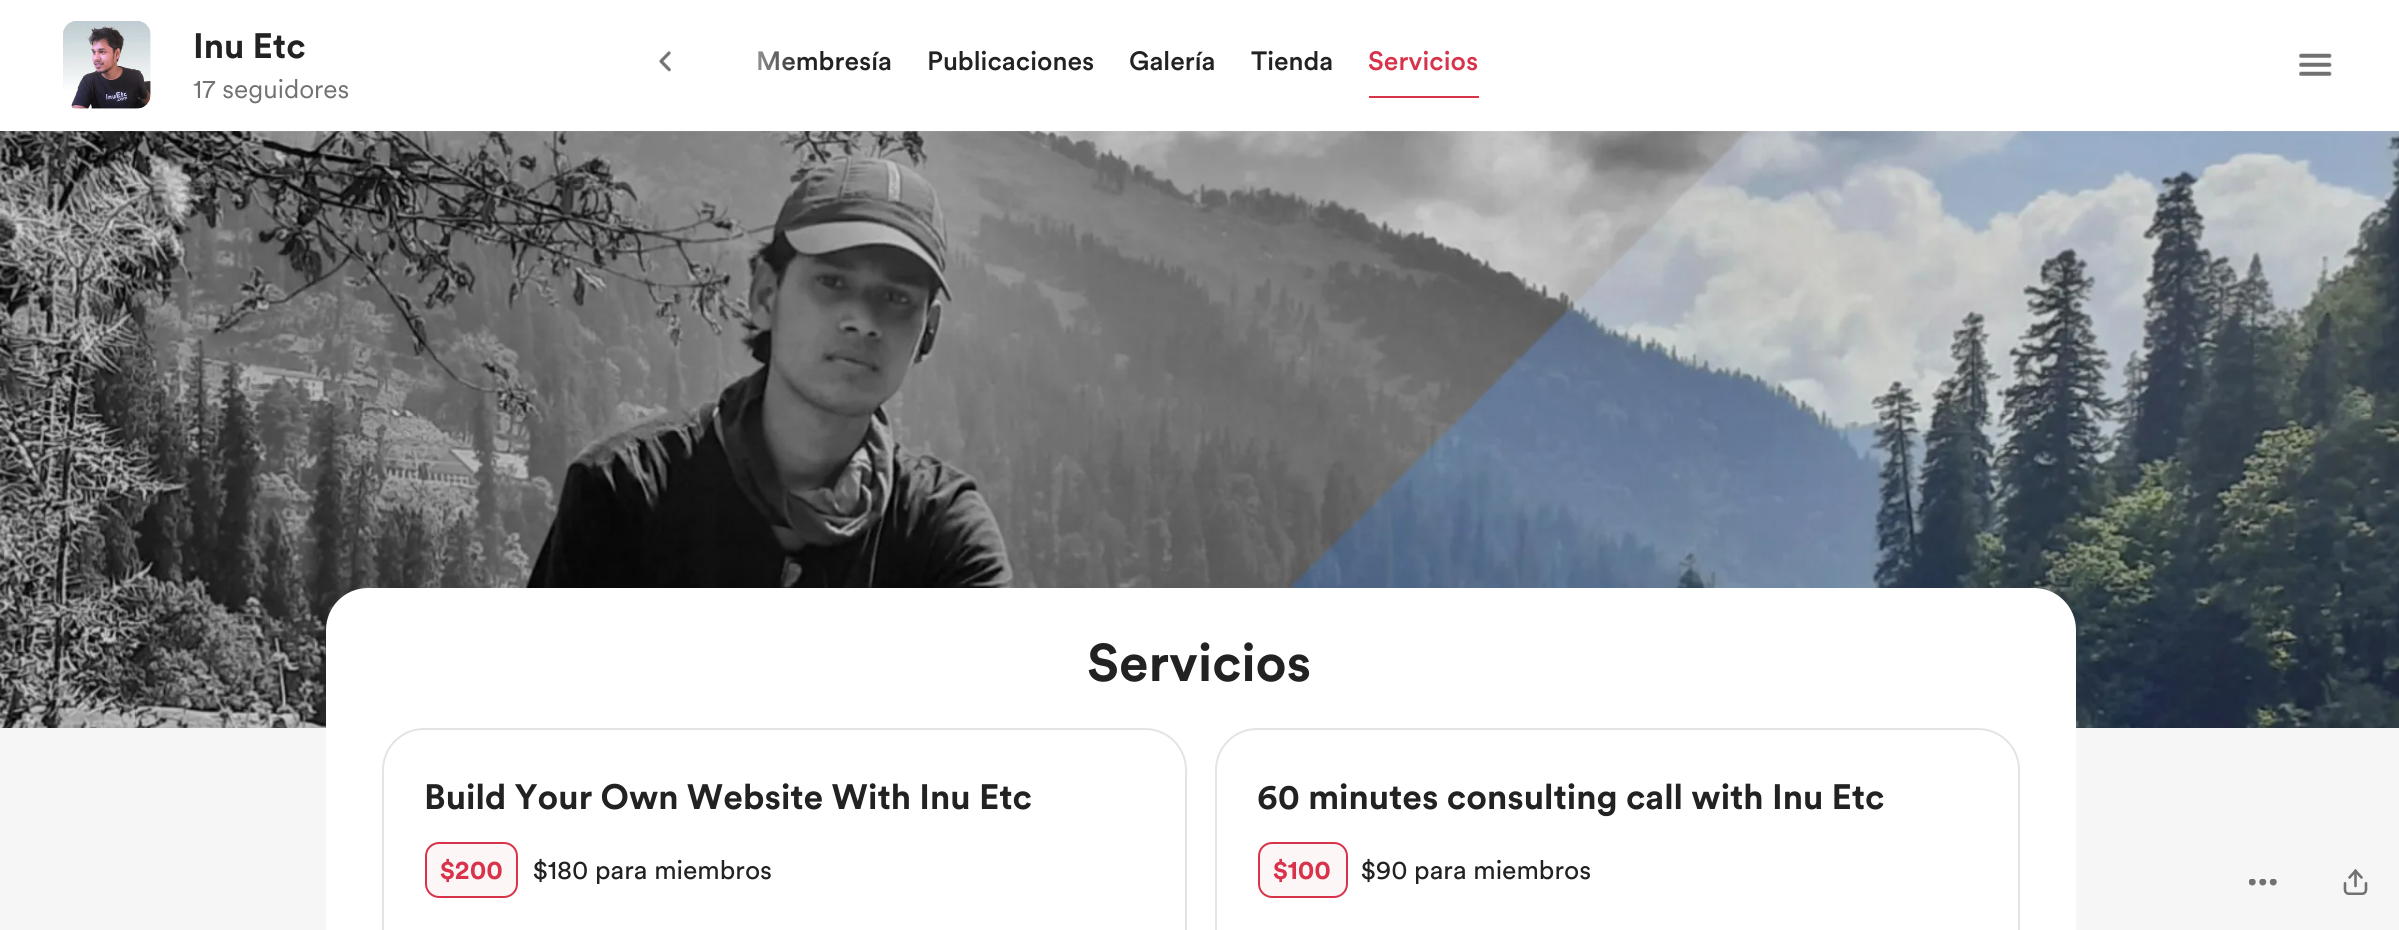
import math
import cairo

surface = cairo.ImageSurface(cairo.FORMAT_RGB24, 2399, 930)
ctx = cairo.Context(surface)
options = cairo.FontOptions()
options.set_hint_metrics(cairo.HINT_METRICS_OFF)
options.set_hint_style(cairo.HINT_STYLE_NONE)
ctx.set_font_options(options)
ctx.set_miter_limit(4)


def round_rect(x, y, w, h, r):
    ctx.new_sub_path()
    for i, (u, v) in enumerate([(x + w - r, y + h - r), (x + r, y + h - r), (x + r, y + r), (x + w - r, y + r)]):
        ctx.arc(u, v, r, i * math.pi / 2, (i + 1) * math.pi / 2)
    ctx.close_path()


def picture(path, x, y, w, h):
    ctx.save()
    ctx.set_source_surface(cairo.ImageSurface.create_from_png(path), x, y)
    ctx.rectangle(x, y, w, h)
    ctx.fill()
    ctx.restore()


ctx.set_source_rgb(1, 1, 1)
ctx.paint()
picture("img1.png", 63, 21, 88, 88)
picture("img2.png", 63, 21, 88, 88)
ctx.select_font_face("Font", cairo.FONT_SLANT_NORMAL, cairo.FONT_WEIGHT_BOLD)
ctx.set_font_size(35)
ctx.set_source_rgb(0.133, 0.133, 0.133)
ctx.move_to(193, 58)
ctx.show_text("Inu Etc")
ctx.select_font_face("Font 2")
ctx.set_font_size(26.25)
ctx.set_source_rgb(0.443, 0.443, 0.443)
ctx.move_to(193, 98)
ctx.show_text("17 seguidores")
picture("img3.png", 659, 51, 12, 21)
ctx.select_font_face("Font Medium")
ctx.set_source_rgb(0.133, 0.133, 0.133)
ctx.move_to(756, 70)
ctx.show_text("Membresía")
ctx.move_to(927, 70)
ctx.show_text("Publicaciones")
ctx.move_to(1129, 70)
ctx.show_text("Galería")
ctx.move_to(1251, 70)
ctx.show_text("Tienda")
ctx.set_source_rgb(0.847, 0.2, 0.29)
ctx.move_to(1368, 70)
ctx.show_text("Servicios")
ctx.rectangle(1369, 96, 110, 2)
ctx.fill()
gradient = cairo.LinearGradient(714, 66, 802, 66)
gradient.add_color_stop_rgba(0, 1, 1, 1, 1)
gradient.add_color_stop_rgba(1, 1, 1, 1, 0)
ctx.set_source(gradient)
ctx.rectangle(758, 51, 42, 20)
ctx.fill()
picture("img4.png", 2299, 53, 33, 23)
ctx.set_source_rgb(0.961, 0.961, 0.961)
ctx.rectangle(0, 131, 2399, 799)
ctx.fill()
picture("img5.png", 0, 131, 2399, 597)
picture("img6.png", 0, 131, 2399, 1)
ctx.set_source_rgb(1, 1, 1)
round_rect(326, 588, 1750, 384, 42)
ctx.fill()
ctx.select_font_face("Font", cairo.FONT_SLANT_NORMAL, cairo.FONT_WEIGHT_BOLD)
ctx.set_font_size(52.5)
ctx.set_source_rgb(0.133, 0.133, 0.133)
ctx.move_to(1087, 681)
ctx.show_text("Servicios")
round_rect(383, 729, 803, 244, 41)
ctx.set_source_rgb(0.894, 0.894, 0.894)
ctx.stroke()
ctx.set_font_size(35)
ctx.set_source_rgb(0.133, 0.133, 0.133)
ctx.move_to(424, 809)
ctx.show_text("Build Your Own Website With Inu Etc")
ctx.set_source_rgb(0.992, 0.961, 0.965)
round_rect(426, 843, 91, 54, 13)
ctx.fill_preserve()
ctx.set_source_rgb(0.847, 0.2, 0.29)
ctx.stroke()
ctx.set_font_size(26.25)
ctx.move_to(440, 879)
ctx.show_text("$200")
ctx.select_font_face("Font")
ctx.set_source_rgb(0.133, 0.133, 0.133)
ctx.move_to(533, 879)
ctx.show_text("$180 para miembros")
round_rect(1216, 729, 803, 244, 41)
ctx.set_source_rgb(0.894, 0.894, 0.894)
ctx.stroke()
ctx.select_font_face("Font", cairo.FONT_SLANT_NORMAL, cairo.FONT_WEIGHT_BOLD)
ctx.set_font_size(35)
ctx.set_source_rgb(0.133, 0.133, 0.133)
ctx.move_to(1257, 809)
ctx.show_text("60 minutes consulting call with Inu Etc")
ctx.set_source_rgb(0.992, 0.961, 0.965)
round_rect(1259, 843, 88, 54, 13)
ctx.fill_preserve()
ctx.set_source_rgb(0.847, 0.2, 0.29)
ctx.stroke()
ctx.set_font_size(26.25)
ctx.move_to(1273, 879)
ctx.show_text("$100")
ctx.select_font_face("Font")
ctx.set_source_rgb(0.133, 0.133, 0.133)
ctx.move_to(1361, 879)
ctx.show_text("$90 para miembros")
picture("img7.png", 2249, 879, 28, 7)
picture("img8.png", 2343, 869, 25, 26)
surface.write_to_png("page.png")
